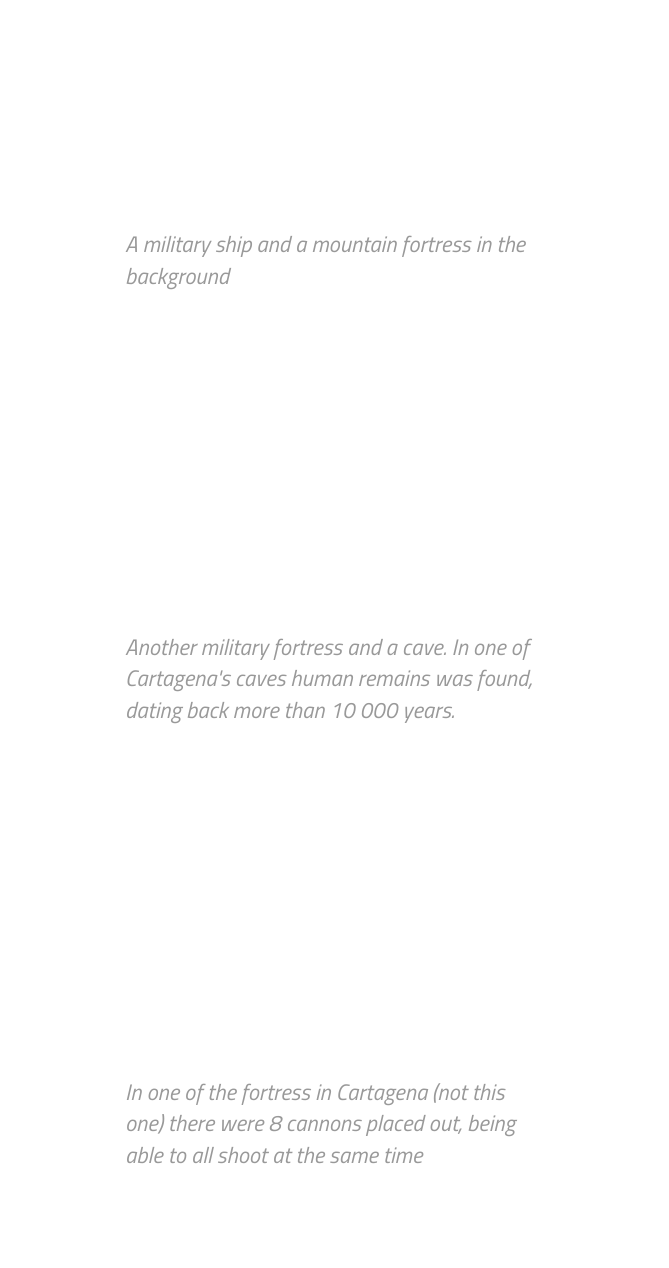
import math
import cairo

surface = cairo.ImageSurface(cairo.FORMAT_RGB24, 669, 1268)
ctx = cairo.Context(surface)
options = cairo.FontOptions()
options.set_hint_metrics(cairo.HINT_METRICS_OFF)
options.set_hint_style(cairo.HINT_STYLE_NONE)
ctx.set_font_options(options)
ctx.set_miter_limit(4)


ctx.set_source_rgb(1, 1, 1)
ctx.paint()
ctx.select_font_face("Titillium Web", cairo.FONT_SLANT_ITALIC)
ctx.set_font_size(22.5)
ctx.set_source_rgb(0.6, 0.6, 0.6)
ctx.move_to(125, 252)
ctx.show_text("A military ship and a mountain fortress in the")
ctx.move_to(125, 284)
ctx.show_text("background")
ctx.move_to(125, 655)
ctx.show_text("Another military fortress and a cave. In one of")
ctx.move_to(125, 686)
ctx.show_text("Cartagena's caves human remains was found,")
ctx.move_to(125, 718)
ctx.show_text("dating back more than 10 000 years.")
ctx.move_to(125, 1100)
ctx.show_text("In one of the fortress in Cartagena (not this")
ctx.move_to(125, 1131)
ctx.show_text("one) there were 8 cannons placed out, being")
ctx.move_to(125, 1163)
ctx.show_text("able to all shoot at the same time")
surface.write_to_png("page.png")
